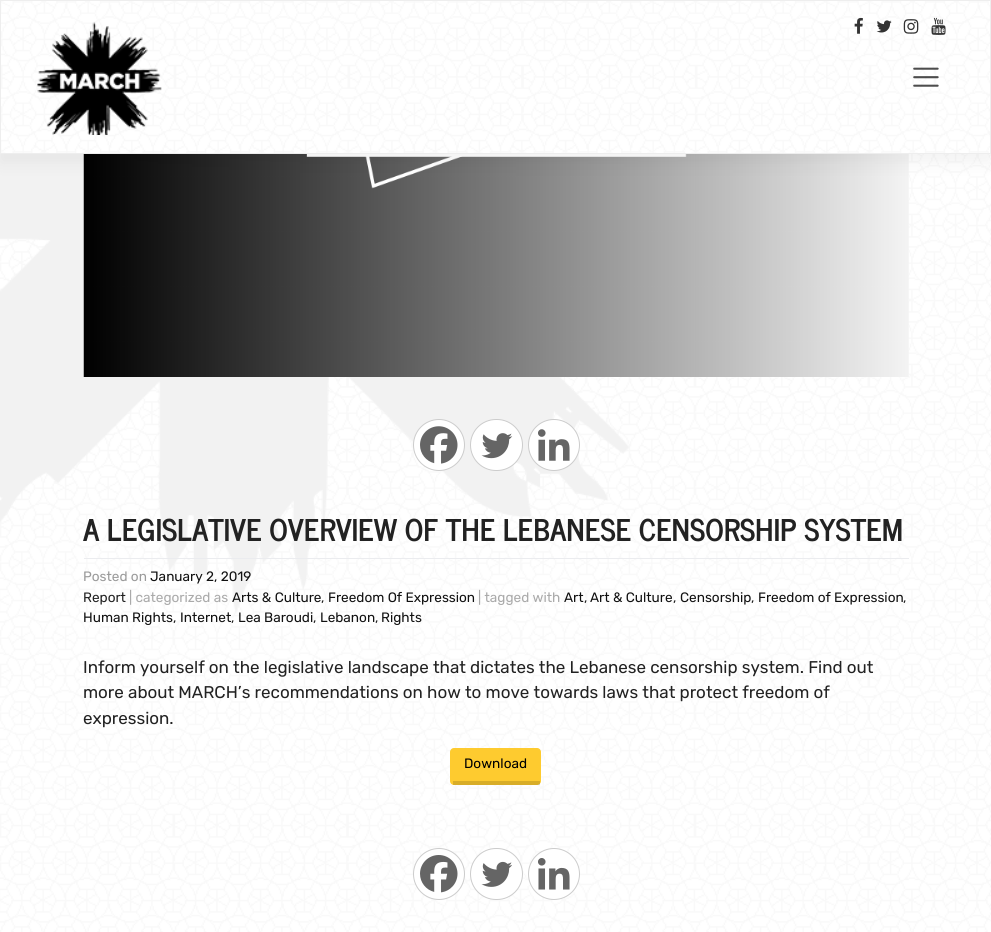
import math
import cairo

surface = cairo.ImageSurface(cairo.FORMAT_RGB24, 991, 932)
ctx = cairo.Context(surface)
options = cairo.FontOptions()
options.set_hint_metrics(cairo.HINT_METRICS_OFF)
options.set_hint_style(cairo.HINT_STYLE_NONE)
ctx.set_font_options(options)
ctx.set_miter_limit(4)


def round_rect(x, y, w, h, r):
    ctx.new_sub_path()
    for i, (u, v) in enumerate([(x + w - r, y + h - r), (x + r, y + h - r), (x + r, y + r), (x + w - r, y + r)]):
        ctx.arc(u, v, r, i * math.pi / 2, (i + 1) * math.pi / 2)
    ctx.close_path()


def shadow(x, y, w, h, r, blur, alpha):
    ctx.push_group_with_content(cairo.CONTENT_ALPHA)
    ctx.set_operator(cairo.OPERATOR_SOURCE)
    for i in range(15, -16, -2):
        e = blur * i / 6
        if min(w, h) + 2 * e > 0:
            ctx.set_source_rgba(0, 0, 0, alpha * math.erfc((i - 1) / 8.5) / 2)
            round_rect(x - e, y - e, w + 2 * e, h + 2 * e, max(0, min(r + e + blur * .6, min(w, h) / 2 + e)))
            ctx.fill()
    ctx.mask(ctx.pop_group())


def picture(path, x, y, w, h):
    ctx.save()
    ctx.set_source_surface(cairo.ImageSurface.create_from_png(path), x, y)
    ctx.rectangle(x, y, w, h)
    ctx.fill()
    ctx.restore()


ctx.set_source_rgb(1, 1, 1)
ctx.paint()
picture("img1.png", 0, 154, 991, 778)
picture("img9.png", 83, 154, 826, 223)
ctx.set_source_rgb(0, 0, 0)
shadow(0, 9, 991, 154, 0, 8.5, 0.05)
picture("img2.png", 1, 1, 989, 152)
ctx.rectangle(0.5, 0.5, 990, 153)
ctx.set_source_rgb(0.933, 0.933, 0.933)
ctx.set_line_width(1)
ctx.stroke()
picture("img3.png", 854, 17, 9, 17)
picture("img4.png", 876, 20, 16, 13)
picture("img5.png", 903, 19, 16, 15)
picture("img6.png", 931, 17, 15, 18)
picture("img7.png", 37, 22, 125, 113)
picture("img8.png", 913, 67, 26, 20)
ctx.set_source_rgb(1, 1, 1)
ctx.arc(439, 445, 25.5, 0, 2 * math.pi)
ctx.fill_preserve()
ctx.set_source_rgb(0.8, 0.8, 0.8)
ctx.stroke()
picture("img10.png", 420, 426, 38, 38)
ctx.set_source_rgb(1, 1, 1)
round_rect(470.5, 419.5, 52, 51, 25.5)
ctx.fill_preserve()
ctx.set_source_rgb(0.8, 0.8, 0.8)
ctx.stroke()
picture("img11.png", 481, 433, 32, 26)
ctx.set_source_rgb(1, 1, 1)
ctx.arc(554, 445, 25.5, 0, 2 * math.pi)
ctx.fill_preserve()
ctx.set_source_rgb(0.8, 0.8, 0.8)
ctx.stroke()
picture("img12.png", 538, 429, 32, 32)
ctx.set_source_rgb(0.918, 0.925, 0.937)
ctx.rectangle(84, 558, 825, 1)
ctx.fill()
ctx.select_font_face("News Cycle", cairo.FONT_SLANT_NORMAL, cairo.FONT_WEIGHT_BOLD)
ctx.set_font_size(29.75)
ctx.set_source_rgb(0.133, 0.133, 0.133)
ctx.move_to(83, 541)
ctx.show_text("A LEGISLATIVE OVERVIEW OF THE LEBANESE CENSORSHIP SYSTEM")
ctx.select_font_face("Rubik Light")
ctx.set_font_size(13.6)
ctx.set_source_rgb(0.604, 0.604, 0.604)
ctx.move_to(83, 581)
ctx.show_text("Posted on")
ctx.set_source_rgb(0.067, 0.067, 0.067)
ctx.move_to(150, 581)
ctx.show_text("January 2, 2019")
ctx.set_source_rgb(0.133, 0.133, 0.133)
ctx.move_to(83, 602)
ctx.show_text("Report")
ctx.set_source_rgb(0.667, 0.667, 0.667)
ctx.move_to(129, 602)
ctx.show_text("| categorized as")
ctx.set_source_rgb(0.067, 0.067, 0.067)
ctx.move_to(232, 602)
ctx.show_text("Arts & Culture")
ctx.set_source_rgb(0.133, 0.133, 0.133)
ctx.move_to(321, 602)
ctx.show_text(",")
ctx.set_source_rgb(0.067, 0.067, 0.067)
ctx.move_to(328, 602)
ctx.show_text("Freedom Of Expression")
ctx.set_source_rgb(0.667, 0.667, 0.667)
ctx.move_to(478, 602)
ctx.show_text("| tagged with")
ctx.set_source_rgb(0.067, 0.067, 0.067)
ctx.move_to(564, 602)
ctx.show_text("Art")
ctx.set_source_rgb(0.133, 0.133, 0.133)
ctx.move_to(584, 602)
ctx.show_text(",")
ctx.set_source_rgb(0.067, 0.067, 0.067)
ctx.move_to(590, 602)
ctx.show_text("Art & Culture")
ctx.set_source_rgb(0.133, 0.133, 0.133)
ctx.move_to(673, 602)
ctx.show_text(",")
ctx.set_source_rgb(0.067, 0.067, 0.067)
ctx.move_to(680, 602)
ctx.show_text("Censorship")
ctx.set_source_rgb(0.133, 0.133, 0.133)
ctx.move_to(751, 602)
ctx.show_text(",")
ctx.set_source_rgb(0.067, 0.067, 0.067)
ctx.move_to(758, 602)
ctx.show_text("Freedom of Expression")
ctx.set_source_rgb(0.133, 0.133, 0.133)
ctx.move_to(903, 602)
ctx.show_text(",")
ctx.set_source_rgb(0.067, 0.067, 0.067)
ctx.move_to(83, 622)
ctx.show_text("Human Rights")
ctx.set_source_rgb(0.133, 0.133, 0.133)
ctx.move_to(173, 622)
ctx.show_text(",")
ctx.set_source_rgb(0.067, 0.067, 0.067)
ctx.move_to(180, 622)
ctx.show_text("Internet")
ctx.set_source_rgb(0.133, 0.133, 0.133)
ctx.move_to(231, 622)
ctx.show_text(",")
ctx.set_source_rgb(0.067, 0.067, 0.067)
ctx.move_to(238, 622)
ctx.show_text("Lea Baroudi")
ctx.set_source_rgb(0.133, 0.133, 0.133)
ctx.move_to(313, 622)
ctx.show_text(",")
ctx.set_source_rgb(0.067, 0.067, 0.067)
ctx.move_to(320, 622)
ctx.show_text("Lebanon")
ctx.set_source_rgb(0.133, 0.133, 0.133)
ctx.move_to(375, 622)
ctx.show_text(",")
ctx.set_source_rgb(0.067, 0.067, 0.067)
ctx.move_to(381, 622)
ctx.show_text("Rights")
ctx.set_font_size(17)
ctx.set_source_rgb(0.133, 0.133, 0.133)
ctx.move_to(83, 673)
ctx.show_text("Inform yourself on the legislative landscape that dictates the Lebanese censorship system. Find out")
ctx.move_to(83, 698)
ctx.show_text("more about MARCH’s recommendations on how to move towards laws that protect freedom of")
ctx.move_to(83, 724)
ctx.show_text("expression.")
ctx.set_source_rgb(0.996, 0.796, 0.184)
round_rect(450, 748, 91, 37, 4)
ctx.fill()
ctx.set_source_rgba(0, 0, 0, 0.15)
ctx.rectangle(453, 781, 87, 4)
ctx.fill()
ctx.set_font_size(13.6)
ctx.set_source_rgb(0, 0, 0)
ctx.move_to(464, 768)
ctx.show_text("Download")
ctx.set_source_rgb(1, 1, 1)
ctx.new_path()
ctx.arc(439, 874, 25.5, 0, 2 * math.pi)
ctx.fill_preserve()
ctx.set_source_rgb(0.8, 0.8, 0.8)
ctx.stroke()
picture("img13.png", 420, 855, 38, 38)
ctx.set_source_rgb(1, 1, 1)
round_rect(470.5, 848.5, 52, 51, 25.5)
ctx.fill_preserve()
ctx.set_source_rgb(0.8, 0.8, 0.8)
ctx.stroke()
picture("img14.png", 481, 861, 31, 26)
ctx.set_source_rgb(1, 1, 1)
ctx.arc(554, 874, 25.5, 0, 2 * math.pi)
ctx.fill_preserve()
ctx.set_source_rgb(0.8, 0.8, 0.8)
ctx.stroke()
picture("img15.png", 538, 858, 32, 32)
surface.write_to_png("page.png")
